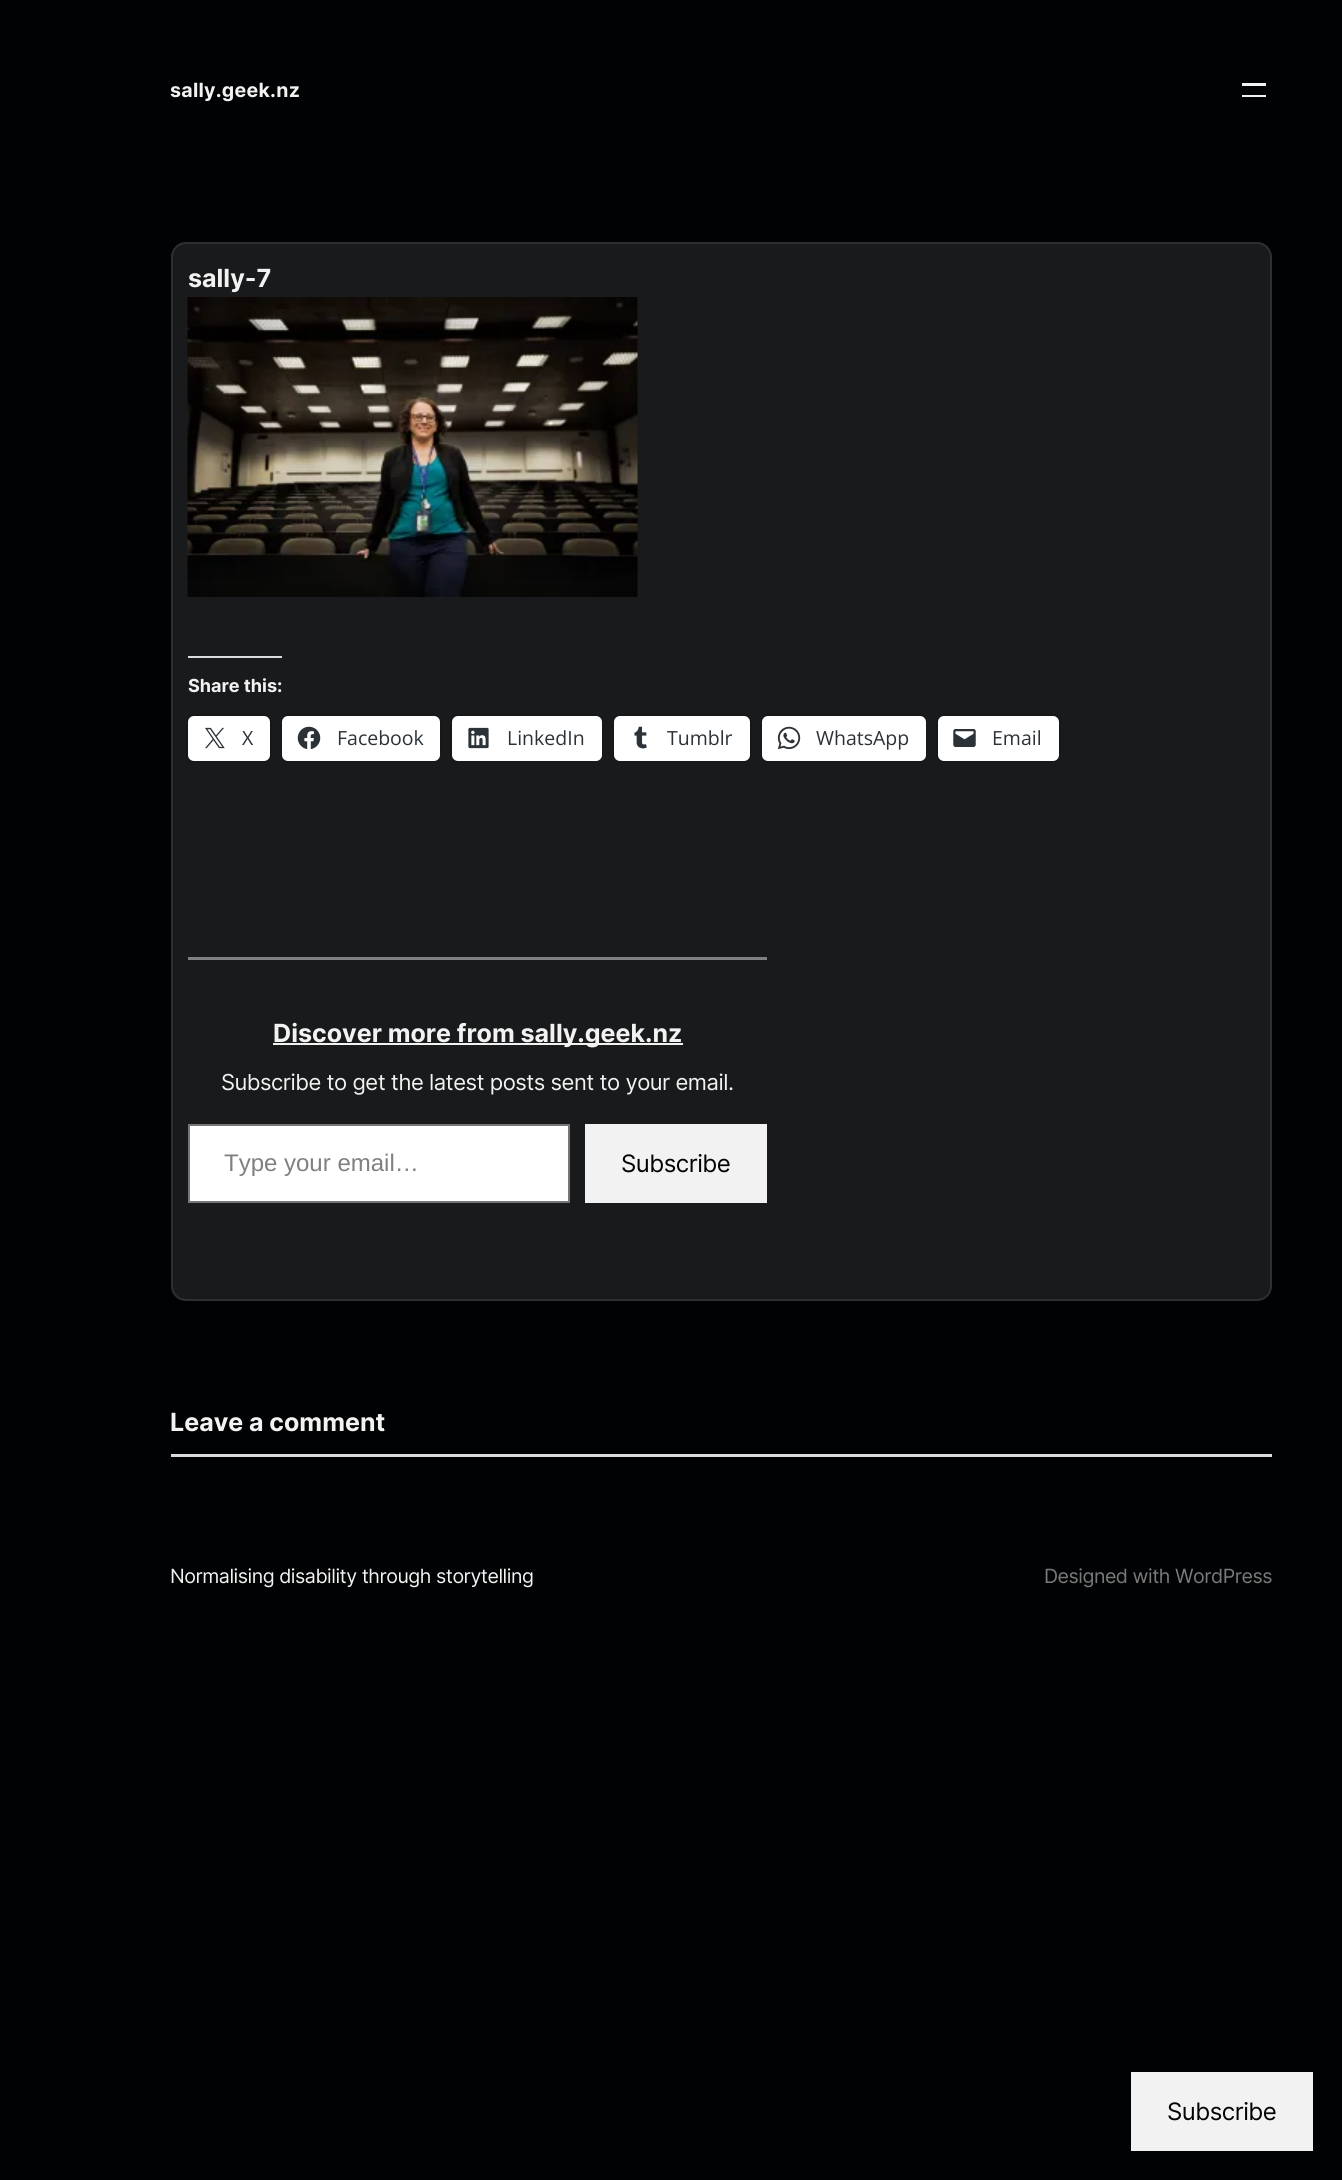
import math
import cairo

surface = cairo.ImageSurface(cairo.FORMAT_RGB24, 1342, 2180)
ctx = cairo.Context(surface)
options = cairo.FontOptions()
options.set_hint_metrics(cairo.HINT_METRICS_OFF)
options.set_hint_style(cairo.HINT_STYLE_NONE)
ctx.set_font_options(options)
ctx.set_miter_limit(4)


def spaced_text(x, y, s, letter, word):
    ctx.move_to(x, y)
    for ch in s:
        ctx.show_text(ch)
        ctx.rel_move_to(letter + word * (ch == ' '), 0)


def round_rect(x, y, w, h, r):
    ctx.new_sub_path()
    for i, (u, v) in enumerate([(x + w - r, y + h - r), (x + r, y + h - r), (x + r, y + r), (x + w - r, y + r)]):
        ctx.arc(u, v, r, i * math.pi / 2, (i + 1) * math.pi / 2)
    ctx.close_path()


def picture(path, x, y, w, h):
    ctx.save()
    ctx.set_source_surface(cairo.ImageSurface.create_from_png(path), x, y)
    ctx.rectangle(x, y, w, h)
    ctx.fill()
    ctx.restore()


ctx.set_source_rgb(0.004, 0.008, 0.012)
ctx.paint()
ctx.select_font_face("Inter", cairo.FONT_SLANT_NORMAL, cairo.FONT_WEIGHT_BOLD)
ctx.set_font_size(19.6)
ctx.set_source_rgb(0.949, 0.949, 0.949)
spaced_text(170, 97, "sally.geek.nz", 0.25, 0)
ctx.rectangle(1242, 83, 24, 3)
ctx.fill()
ctx.rectangle(1242, 95, 24, 2)
ctx.fill()
ctx.set_source_rgb(0.098, 0.102, 0.106)
round_rect(171, 242, 1101, 1059, 15)
ctx.fill()
round_rect(172, 243, 1099, 1057, 14)
ctx.set_source_rgba(0.949, 0.949, 0.949, 0.1)
ctx.stroke()
ctx.set_font_size(25)
ctx.set_source_rgb(0.949, 0.949, 0.949)
ctx.move_to(188, 287)
ctx.show_text("sally-7")
picture("img1.png", 187, 297, 451, 300)
ctx.set_source_rgb(0.863, 0.863, 0.871)
ctx.rectangle(188, 656, 94, 2)
ctx.fill()
ctx.set_font_size(18)
ctx.set_source_rgb(0.949, 0.949, 0.949)
ctx.move_to(188, 692)
ctx.show_text("Share this:")
round_rect(187, 715, 84, 46, 7)
ctx.set_source_rgb(0.086, 0.09, 0.094)
ctx.stroke()
ctx.set_source_rgb(1, 1, 1)
round_rect(188, 716, 82, 45, 6)
ctx.fill()
picture("img2.png", 205, 727, 20, 22)
ctx.select_font_face("Open Sans")
ctx.set_font_size(19.5)
ctx.set_source_rgb(0.173, 0.2, 0.22)
ctx.move_to(242, 745)
ctx.show_text("X")
round_rect(282, 715, 158, 46, 7)
ctx.set_source_rgb(0.086, 0.09, 0.094)
ctx.stroke()
ctx.set_source_rgb(1, 1, 1)
round_rect(282, 716, 158, 45, 6)
ctx.fill()
picture("img3.png", 297, 726, 24, 23)
ctx.set_source_rgb(0.173, 0.2, 0.22)
ctx.move_to(337, 745)
ctx.show_text("Facebook")
round_rect(451, 715, 151, 46, 7)
ctx.set_source_rgb(0.086, 0.09, 0.094)
ctx.stroke()
ctx.set_source_rgb(1, 1, 1)
round_rect(452, 716, 150, 45, 6)
ctx.fill()
picture("img4.png", 468, 727, 21, 22)
ctx.set_source_rgb(0.173, 0.2, 0.22)
ctx.move_to(507, 745)
ctx.show_text("LinkedIn")
round_rect(613, 715, 138, 46, 7)
ctx.set_source_rgb(0.086, 0.09, 0.094)
ctx.stroke()
ctx.set_source_rgb(1, 1, 1)
round_rect(614, 716, 136, 45, 6)
ctx.fill()
picture("img5.png", 634, 726, 13, 23)
ctx.set_source_rgb(0.173, 0.2, 0.22)
ctx.move_to(667, 745)
ctx.show_text("Tumblr")
round_rect(762, 715, 164, 46, 7)
ctx.set_source_rgb(0.086, 0.09, 0.094)
ctx.stroke()
ctx.set_source_rgb(1, 1, 1)
round_rect(762, 716, 164, 45, 6)
ctx.fill()
picture("img6.png", 777, 726, 24, 24)
ctx.set_source_rgb(0.173, 0.2, 0.22)
ctx.move_to(816, 745)
ctx.show_text("WhatsApp")
round_rect(937, 715, 123, 46, 7)
ctx.set_source_rgb(0.086, 0.09, 0.094)
ctx.stroke()
ctx.set_source_rgb(1, 1, 1)
round_rect(938, 716, 121, 45, 6)
ctx.fill()
picture("img7.png", 953, 729, 23, 18)
ctx.set_source_rgb(0.173, 0.2, 0.22)
ctx.move_to(992, 745)
ctx.show_text("Email")
ctx.set_source_rgb(0.502, 0.502, 0.502)
ctx.rectangle(188, 957, 579, 3)
ctx.fill()
ctx.set_source_rgb(0.949, 0.949, 0.949)
ctx.rectangle(273, 1043, 410, 2)
ctx.fill()
ctx.select_font_face("Inter", cairo.FONT_SLANT_NORMAL, cairo.FONT_WEIGHT_BOLD)
ctx.set_font_size(25)
ctx.move_to(273, 1042)
ctx.show_text("Discover more from sally.geek.nz")
ctx.select_font_face("Inter")
ctx.set_font_size(22)
spaced_text(221, 1090, "Subscribe to get the latest posts sent to your email.", -0.48, 0)
ctx.set_source_rgb(1, 1, 1)
ctx.rectangle(189, 1125, 380, 77)
ctx.fill_preserve()
ctx.set_source_rgb(0.463, 0.463, 0.463)
ctx.stroke()
ctx.select_font_face("Liberation Sans")
ctx.set_font_size(24)
ctx.set_source_rgb(0.502, 0.502, 0.502)
ctx.move_to(224, 1171)
ctx.show_text("Type your email…")
ctx.set_source_rgb(0.949, 0.949, 0.949)
ctx.rectangle(585, 1124, 182, 79)
ctx.fill()
ctx.select_font_face("Inter")
ctx.set_source_rgb(0.004, 0.008, 0.012)
spaced_text(621, 1172, "Subscribe", -0.48, 0)
ctx.select_font_face("Inter", cairo.FONT_SLANT_NORMAL, cairo.FONT_WEIGHT_BOLD)
ctx.set_font_size(25)
ctx.set_source_rgb(0.949, 0.949, 0.949)
ctx.move_to(170, 1431)
ctx.show_text("Leave a comment")
ctx.set_source_rgb(0.863, 0.863, 0.871)
ctx.rectangle(171, 1454, 1101, 3)
ctx.fill()
ctx.select_font_face("Inter")
ctx.set_font_size(19.6)
ctx.set_source_rgb(0.949, 0.949, 0.949)
spaced_text(170, 1583, "Normalising disability through storytelling", -0.48, 0)
ctx.set_source_rgb(0.478, 0.478, 0.482)
spaced_text(1044, 1583, "Designed with WordPress", -0.48, 0)
ctx.set_source_rgb(0.949, 0.949, 0.949)
ctx.rectangle(1131, 2072, 182, 79)
ctx.fill()
ctx.set_font_size(24)
ctx.set_source_rgb(0.004, 0.008, 0.012)
spaced_text(1167, 2120, "Subscribe", -0.48, 0)
surface.write_to_png("page.png")
